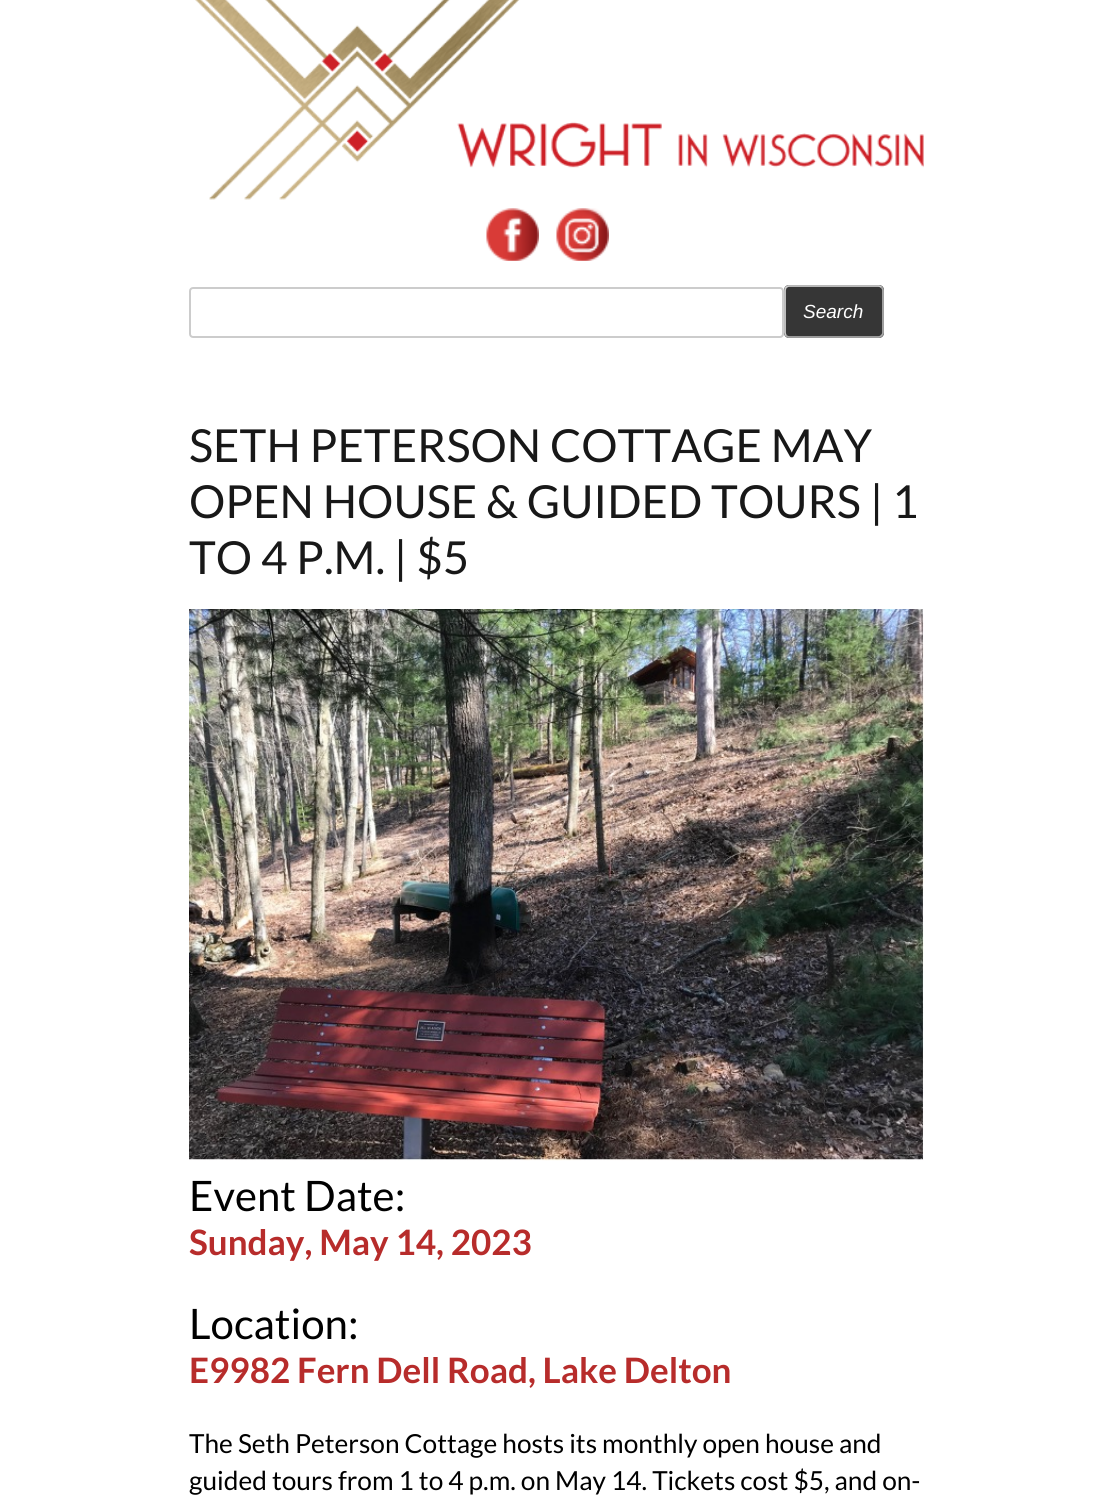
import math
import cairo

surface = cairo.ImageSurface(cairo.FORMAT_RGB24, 1113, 1499)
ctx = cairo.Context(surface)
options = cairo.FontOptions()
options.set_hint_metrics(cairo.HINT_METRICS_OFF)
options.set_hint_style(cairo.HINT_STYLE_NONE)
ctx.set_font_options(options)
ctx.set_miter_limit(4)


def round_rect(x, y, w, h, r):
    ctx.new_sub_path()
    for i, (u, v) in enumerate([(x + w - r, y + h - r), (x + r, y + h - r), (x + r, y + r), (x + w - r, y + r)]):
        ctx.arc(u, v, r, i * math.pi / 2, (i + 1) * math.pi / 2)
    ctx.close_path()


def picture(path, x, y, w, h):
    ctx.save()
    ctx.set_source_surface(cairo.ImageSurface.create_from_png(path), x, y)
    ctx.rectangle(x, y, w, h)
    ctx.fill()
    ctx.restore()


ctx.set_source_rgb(1, 1, 1)
ctx.paint()
picture("img1.png", 195, 0, 729, 200)
picture("img2.png", 486, 208, 53, 53)
picture("img3.png", 556, 208, 53, 53)
round_rect(190, 288, 593, 49, 3)
ctx.set_source_rgb(0.8, 0.8, 0.8)
ctx.stroke()
ctx.set_source_rgb(0.212, 0.212, 0.212)
round_rect(784, 285, 100, 53, 5)
ctx.fill()
ctx.new_path()
ctx.move_to(881.5, 287.5)
ctx.curve_to(882.5, 288, 883, 289.5, 883, 290.5)
ctx.line_to(883, 332.5)
ctx.curve_to(883, 333.5, 882.5, 335, 881.5, 335.5)
ctx.curve_to(881, 336.5, 879.5, 337, 878.5, 337)
ctx.line_to(789, 337)
ctx.curve_to(788, 337, 787, 336.5, 786, 335.5)
ctx.set_source_rgb(0.667, 0.667, 0.667)
ctx.set_line_width(1.8)
ctx.stroke()
ctx.new_path()
ctx.move_to(786, 335.5)
ctx.curve_to(785.5, 335, 785, 333.5, 785, 332.5)
ctx.line_to(785, 290.5)
ctx.curve_to(785, 289.5, 785.5, 288, 786, 287.5)
ctx.curve_to(787, 286.5, 788, 286, 789, 286)
ctx.line_to(878.5, 286)
ctx.curve_to(879.5, 286, 881, 286.5, 881.5, 287.5)
ctx.set_source_rgb(0.8, 0.8, 0.8)
ctx.stroke()
ctx.select_font_face("Liberation Sans", cairo.FONT_SLANT_ITALIC)
ctx.set_font_size(19)
ctx.set_source_rgb(1, 1, 1)
ctx.move_to(803, 318)
ctx.show_text("Search")
ctx.select_font_face("Lato")
ctx.set_font_size(45.5)
ctx.set_source_rgb(0.094, 0.094, 0.094)
ctx.move_to(189, 462)
ctx.show_text("SETH PETERSON COTTAGE MAY")
ctx.move_to(189, 518)
ctx.show_text("OPEN HOUSE & GUIDED TOURS | 1")
ctx.move_to(189, 574)
ctx.show_text("TO 4 P.M. | $5")
picture("img4.png", 189, 609, 735, 552)
ctx.set_font_size(42)
ctx.set_source_rgb(0, 0, 0)
ctx.move_to(189, 1211)
ctx.show_text("Event Date:")
ctx.select_font_face("Lato", cairo.FONT_SLANT_NORMAL, cairo.FONT_WEIGHT_BOLD)
ctx.set_font_size(35)
ctx.set_source_rgb(0.718, 0.173, 0.169)
ctx.move_to(189, 1255)
ctx.show_text("Sunday, May 14, 2023")
ctx.select_font_face("Lato")
ctx.set_font_size(42)
ctx.set_source_rgb(0, 0, 0)
ctx.move_to(189, 1339)
ctx.show_text("Location:")
ctx.select_font_face("Lato", cairo.FONT_SLANT_NORMAL, cairo.FONT_WEIGHT_BOLD)
ctx.set_font_size(35)
ctx.set_source_rgb(0.718, 0.173, 0.169)
ctx.move_to(189, 1383)
ctx.show_text("E9982 Fern Dell Road, Lake Delton")
ctx.select_font_face("Lato")
ctx.set_font_size(26.25)
ctx.set_source_rgb(0, 0, 0)
ctx.move_to(189, 1453)
ctx.show_text("The Seth Peterson Cottage hosts its monthly open house and")
ctx.move_to(189, 1490)
ctx.show_text("guided tours from 1 to 4 p.m. on May 14. Tickets cost $5, and on-")
surface.write_to_png("page.png")
